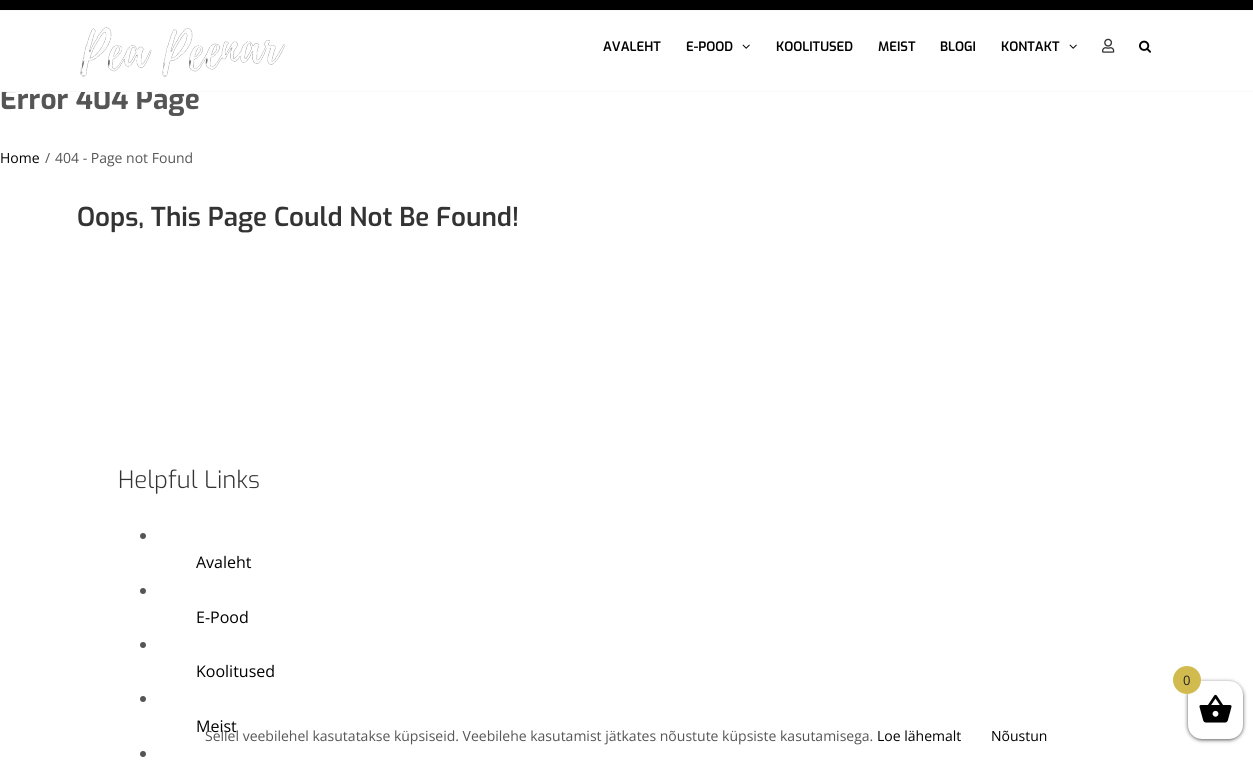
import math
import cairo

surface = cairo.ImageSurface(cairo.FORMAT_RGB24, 1253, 761)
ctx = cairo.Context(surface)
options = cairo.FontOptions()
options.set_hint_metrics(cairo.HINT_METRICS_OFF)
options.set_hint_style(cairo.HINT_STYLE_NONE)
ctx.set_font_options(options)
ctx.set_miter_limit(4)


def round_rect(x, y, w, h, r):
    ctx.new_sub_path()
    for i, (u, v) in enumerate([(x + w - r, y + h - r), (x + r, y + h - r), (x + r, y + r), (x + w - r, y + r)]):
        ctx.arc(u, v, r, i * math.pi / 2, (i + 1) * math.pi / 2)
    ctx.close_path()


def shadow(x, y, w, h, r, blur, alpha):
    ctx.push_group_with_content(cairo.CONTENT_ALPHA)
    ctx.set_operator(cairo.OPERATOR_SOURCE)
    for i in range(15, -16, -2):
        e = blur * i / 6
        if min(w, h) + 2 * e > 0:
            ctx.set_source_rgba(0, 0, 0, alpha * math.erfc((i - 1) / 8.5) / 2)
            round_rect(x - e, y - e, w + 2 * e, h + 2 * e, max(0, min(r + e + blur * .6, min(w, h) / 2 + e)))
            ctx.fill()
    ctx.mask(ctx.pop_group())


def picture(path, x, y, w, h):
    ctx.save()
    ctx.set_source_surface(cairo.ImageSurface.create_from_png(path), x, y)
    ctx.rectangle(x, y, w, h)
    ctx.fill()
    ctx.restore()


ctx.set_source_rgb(1, 1, 1)
ctx.paint()
ctx.set_source_rgb(0, 0, 0)
ctx.rectangle(0, 0, 1253, 10)
ctx.fill()
ctx.set_source_rgb(0.969, 0.969, 0.969)
ctx.rectangle(0, 10, 1253, 1)
ctx.fill()
ctx.select_font_face("Exo", cairo.FONT_SLANT_NORMAL, cairo.FONT_WEIGHT_BOLD)
ctx.set_font_size(28)
ctx.set_source_rgb(0.333, 0.333, 0.333)
ctx.move_to(0, 109)
ctx.show_text("Error 404 Page")
ctx.set_source_rgb(1, 1, 1)
ctx.rectangle(2, 88, 150, 3)
ctx.fill()
ctx.set_source_rgb(0.969, 0.969, 0.969)
ctx.rectangle(0, 91, 1253, 1)
ctx.fill()
picture("img1.png", 80, 27, 205, 50)
ctx.select_font_face("Exo SemiBold")
ctx.set_font_size(13)
ctx.set_source_rgb(0, 0, 0)
ctx.move_to(603, 51)
ctx.show_text("AVALEHT")
ctx.move_to(686, 51)
ctx.show_text("E-POOD")
picture("img2.png", 742, 44, 8, 5)
ctx.move_to(776, 51)
ctx.show_text("KOOLITUSED")
ctx.move_to(878, 51)
ctx.show_text("MEIST")
ctx.move_to(940, 51)
ctx.show_text("BLOGI")
ctx.move_to(1001, 51)
ctx.show_text("KONTAKT")
picture("img2.png", 1069, 44, 8, 5)
picture("img3.png", 1102, 38, 13, 15)
picture("img4.png", 1139, 40, 12, 13)
ctx.select_font_face("Open Sans")
ctx.set_font_size(14)
ctx.move_to(0, 163)
ctx.show_text("Home")
ctx.set_source_rgb(0.333, 0.333, 0.333)
ctx.move_to(45, 163)
ctx.show_text("/")
ctx.move_to(55, 163)
ctx.show_text("404 - Page not Found")
ctx.select_font_face("Exo SemiBold")
ctx.set_font_size(26)
ctx.set_source_rgb(0.2, 0.2, 0.2)
ctx.move_to(77, 226)
ctx.show_text("Oops, This Page Could Not Be Found!")
ctx.select_font_face("Exo Light")
ctx.set_font_size(24)
ctx.move_to(118, 488)
ctx.show_text("Helpful Links")
ctx.set_source_rgb(0.333, 0.333, 0.333)
ctx.new_path()
ctx.arc(143, 536, 3, 0, 2 * math.pi)
ctx.fill()
ctx.select_font_face("Open Sans")
ctx.set_font_size(16)
ctx.set_source_rgb(0, 0, 0)
ctx.move_to(196, 568)
ctx.show_text("Avaleht")
ctx.set_source_rgb(0.333, 0.333, 0.333)
ctx.new_path()
ctx.arc(143, 591, 3, 0, 2 * math.pi)
ctx.fill()
ctx.set_source_rgb(0, 0, 0)
ctx.move_to(196, 623)
ctx.show_text("E-Pood")
ctx.set_source_rgb(0.333, 0.333, 0.333)
ctx.new_path()
ctx.arc(143, 645, 3, 0, 2 * math.pi)
ctx.fill()
ctx.set_source_rgb(0, 0, 0)
ctx.move_to(196, 677)
ctx.show_text("Koolitused")
ctx.set_source_rgb(0.333, 0.333, 0.333)
ctx.new_path()
ctx.arc(143, 699, 3, 0, 2 * math.pi)
ctx.fill()
ctx.set_source_rgb(0, 0, 0)
ctx.move_to(196, 732)
ctx.show_text("Meist")
ctx.set_source_rgb(0.333, 0.333, 0.333)
ctx.new_path()
ctx.arc(143, 754, 3, 0, 2 * math.pi)
ctx.fill()
ctx.set_source_rgb(0.333, 0.333, 0.333)
shadow(1188, 682, 55, 58, 14, 2, 1)
ctx.set_source_rgb(1, 1, 1)
round_rect(1188, 681, 55, 58, 14)
ctx.fill()
ctx.set_source_rgb(0.82, 0.733, 0.31)
ctx.arc(1187, 680, 14, 0, 2 * math.pi)
ctx.fill()
ctx.set_font_size(13)
ctx.set_source_rgb(0.133, 0.133, 0.133)
ctx.move_to(1183, 685)
ctx.show_text("0")
picture("img5.png", 1199, 694, 33, 29)
ctx.set_font_size(14)
ctx.set_source_rgb(0.333, 0.333, 0.333)
ctx.move_to(205, 741)
ctx.show_text("Sellel veebilehel kasutatakse küpsiseid. Veebilehe kasutamist jätkates nõustute küpsiste kasutamisega.")
ctx.set_source_rgb(0, 0, 0)
ctx.move_to(877, 741)
ctx.show_text("Loe lähemalt")
ctx.move_to(991, 741)
ctx.show_text("Nõustun")
surface.write_to_png("page.png")
